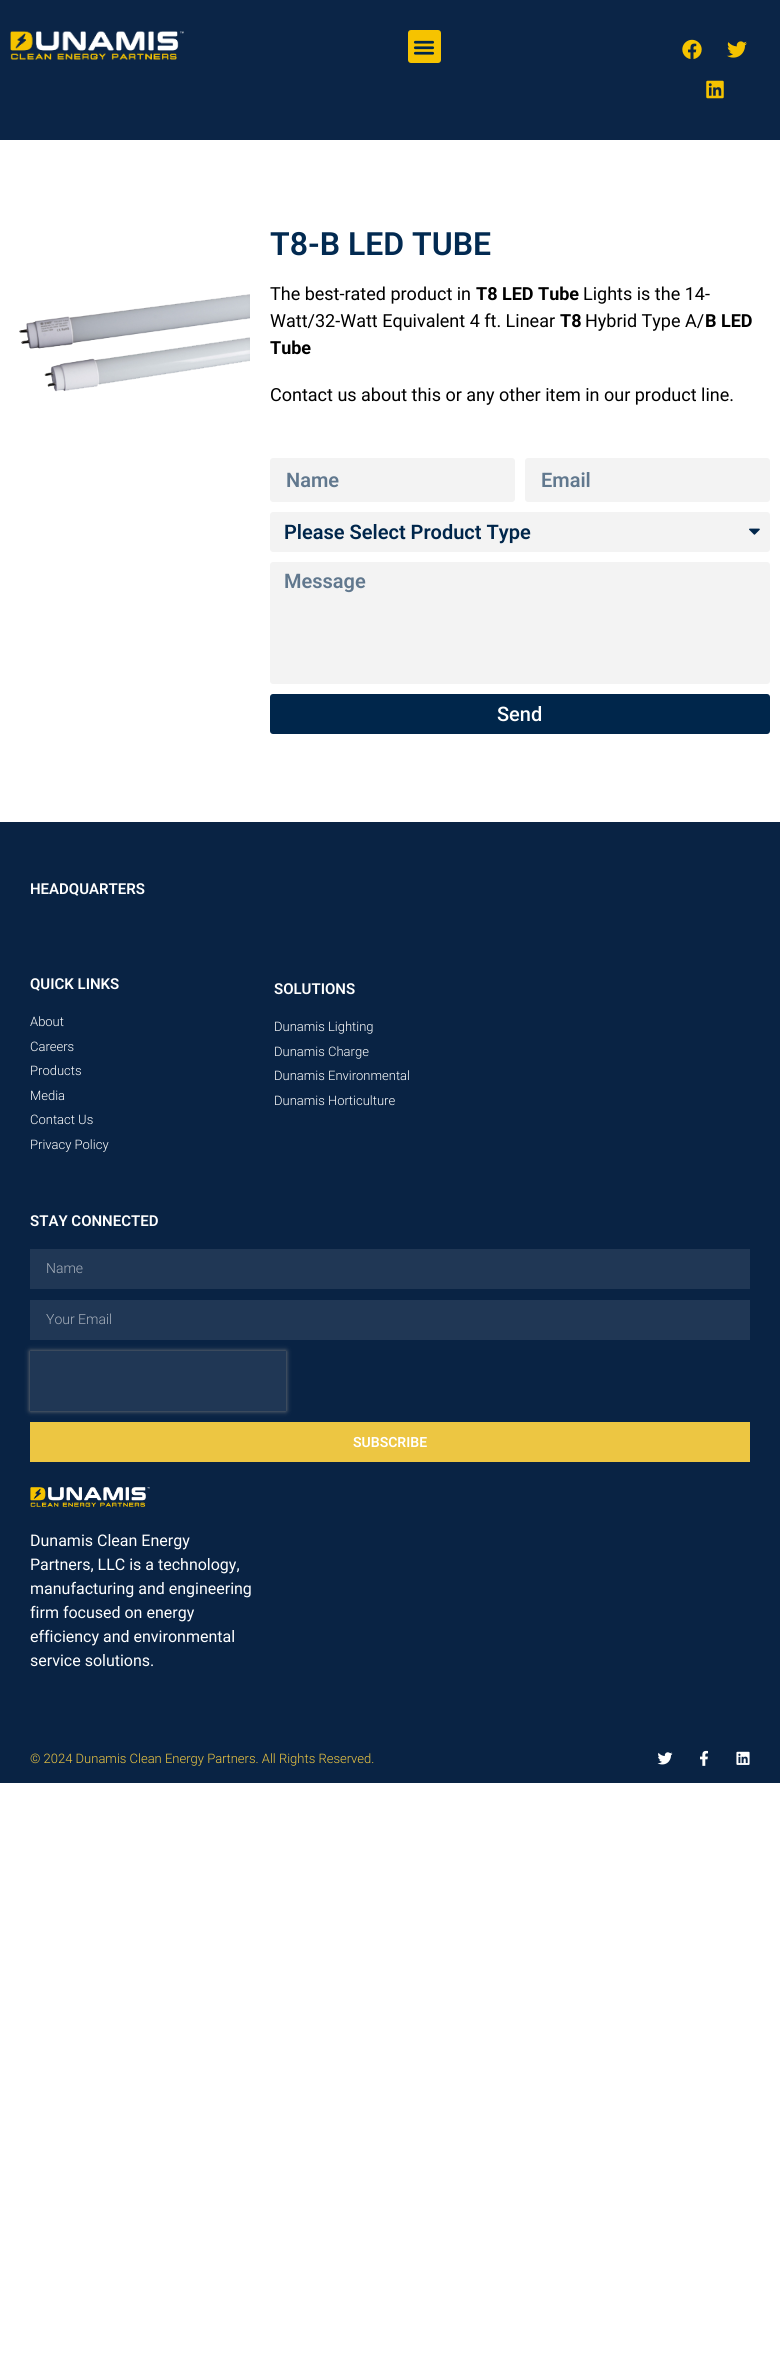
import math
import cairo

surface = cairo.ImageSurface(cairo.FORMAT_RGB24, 780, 2357)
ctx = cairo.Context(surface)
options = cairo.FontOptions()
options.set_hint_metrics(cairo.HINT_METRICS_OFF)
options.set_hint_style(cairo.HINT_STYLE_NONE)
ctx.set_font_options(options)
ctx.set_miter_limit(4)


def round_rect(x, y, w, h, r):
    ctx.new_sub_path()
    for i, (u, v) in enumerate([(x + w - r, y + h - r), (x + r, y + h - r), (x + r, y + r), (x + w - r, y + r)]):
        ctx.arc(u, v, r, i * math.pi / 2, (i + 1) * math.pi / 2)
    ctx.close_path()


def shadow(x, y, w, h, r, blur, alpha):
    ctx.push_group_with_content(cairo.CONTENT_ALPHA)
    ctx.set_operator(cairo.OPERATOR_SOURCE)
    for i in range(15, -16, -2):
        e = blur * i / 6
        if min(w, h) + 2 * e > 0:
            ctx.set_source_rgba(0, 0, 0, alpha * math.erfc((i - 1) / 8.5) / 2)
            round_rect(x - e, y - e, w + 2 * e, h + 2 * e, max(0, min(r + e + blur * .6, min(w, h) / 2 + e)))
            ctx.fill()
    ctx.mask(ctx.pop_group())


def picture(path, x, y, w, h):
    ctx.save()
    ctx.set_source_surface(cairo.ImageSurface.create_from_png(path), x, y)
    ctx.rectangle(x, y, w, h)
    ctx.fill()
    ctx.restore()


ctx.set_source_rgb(1, 1, 1)
ctx.paint()
ctx.set_source_rgb(0.043, 0.145, 0.278)
ctx.rectangle(0, 0, 780, 140)
ctx.fill()
picture("img1.png", 10, 31, 174, 29)
ctx.set_source_rgb(0.961, 0.765, 0)
round_rect(408, 30, 33, 33, 3)
ctx.fill()
picture("img2.png", 413, 40, 22, 15)
picture("img3.png", 682, 39, 20, 20)
picture("img4.png", 727, 41, 20, 17)
picture("img5.png", 706, 80, 18, 19)
picture("img6.png", 19, 294, 231, 98)
ctx.select_font_face("Roboto SemiBold")
ctx.set_font_size(32)
ctx.set_source_rgb(0.008, 0.165, 0.318)
ctx.move_to(270, 255)
ctx.show_text("T8-B LED TUBE")
ctx.select_font_face("Roboto")
ctx.set_font_size(18)
ctx.set_source_rgb(0, 0, 0)
ctx.move_to(270, 300)
ctx.show_text("The best-rated product in")
ctx.select_font_face("Roboto", cairo.FONT_SLANT_NORMAL, cairo.FONT_WEIGHT_BOLD)
ctx.move_to(476, 300)
ctx.show_text("T8 LED Tube")
ctx.select_font_face("Roboto")
ctx.move_to(583, 300)
ctx.show_text("Lights is the 14-")
ctx.move_to(270, 327)
ctx.show_text("Watt/32-Watt Equivalent 4 ft. Linear")
ctx.select_font_face("Roboto", cairo.FONT_SLANT_NORMAL, cairo.FONT_WEIGHT_BOLD)
ctx.move_to(560, 327)
ctx.show_text("T8")
ctx.select_font_face("Roboto")
ctx.move_to(585, 327)
ctx.show_text("Hybrid Type A/")
ctx.select_font_face("Roboto", cairo.FONT_SLANT_NORMAL, cairo.FONT_WEIGHT_BOLD)
ctx.move_to(705, 327)
ctx.show_text("B LED")
ctx.move_to(270, 354)
ctx.show_text("Tube")
ctx.select_font_face("Roboto")
ctx.move_to(270, 401)
ctx.show_text("Contact us about this or any other item in our product line.")
ctx.set_source_rgb(0.953, 0.953, 0.953)
round_rect(270, 458, 245, 44, 3)
ctx.fill()
ctx.select_font_face("Roboto SemiBold")
ctx.set_font_size(20)
ctx.set_source_rgb(0.38, 0.471, 0.557)
ctx.move_to(286, 487)
ctx.show_text("Name")
ctx.set_source_rgb(0.953, 0.953, 0.953)
round_rect(525, 458, 245, 44, 3)
ctx.fill()
ctx.set_source_rgb(0.38, 0.471, 0.557)
ctx.move_to(541, 487)
ctx.show_text("Email")
ctx.set_source_rgb(0.953, 0.953, 0.953)
round_rect(270, 512, 500, 40, 3)
ctx.fill()
ctx.set_source_rgb(0, 0.149, 0.294)
ctx.move_to(284, 539)
ctx.show_text("Please Select Product Type")
picture("img7.png", 749, 528, 11, 7)
ctx.set_source_rgb(0.953, 0.953, 0.953)
round_rect(270, 562, 500, 122, 3)
ctx.fill()
ctx.set_source_rgb(0.38, 0.471, 0.557)
ctx.move_to(284, 588)
ctx.show_text("Message")
ctx.set_source_rgb(0, 0.149, 0.294)
round_rect(270, 694, 500, 40, 3)
ctx.fill()
ctx.select_font_face("Roboto Medium")
ctx.set_source_rgb(1, 1, 1)
ctx.move_to(497, 721)
ctx.show_text("Send")
ctx.set_source_rgb(0.039, 0.137, 0.267)
ctx.rectangle(0, 822, 780, 961)
ctx.fill()
ctx.select_font_face("Roboto SemiBold")
ctx.set_font_size(15)
ctx.set_source_rgb(1, 1, 1)
ctx.move_to(30, 894)
ctx.show_text("HEADQUARTERS")
ctx.move_to(30, 989)
ctx.show_text("QUICK LINKS")
ctx.select_font_face("Roboto Light")
ctx.set_font_size(13)
ctx.move_to(30, 1026)
ctx.show_text("About")
ctx.move_to(30, 1051)
ctx.show_text("Careers")
ctx.move_to(30, 1075)
ctx.show_text("Products")
ctx.move_to(30, 1100)
ctx.show_text("Media")
ctx.move_to(30, 1124)
ctx.show_text("Contact Us")
ctx.move_to(30, 1149)
ctx.show_text("Privacy Policy")
ctx.select_font_face("Roboto SemiBold")
ctx.set_font_size(15)
ctx.move_to(274, 994)
ctx.show_text("SOLUTIONS")
ctx.select_font_face("Roboto Light")
ctx.set_font_size(13)
ctx.move_to(274, 1031)
ctx.show_text("Dunamis Lighting")
ctx.move_to(274, 1056)
ctx.show_text("Dunamis Charge")
ctx.move_to(274, 1080)
ctx.show_text("Dunamis Environmental")
ctx.move_to(274, 1105)
ctx.show_text("Dunamis Horticulture")
ctx.select_font_face("Roboto SemiBold")
ctx.set_font_size(15)
ctx.move_to(30, 1226)
ctx.show_text("STAY CONNECTED")
ctx.set_source_rgb(0.125, 0.216, 0.333)
ctx.rectangle(30, 1249, 720, 40)
ctx.fill()
ctx.select_font_face("Roboto Light")
ctx.set_font_size(14)
ctx.set_source_rgb(0.651, 0.686, 0.733)
ctx.move_to(46, 1273)
ctx.show_text("Name")
ctx.set_source_rgb(0.125, 0.216, 0.333)
ctx.rectangle(30, 1300, 720, 40)
ctx.fill()
ctx.set_source_rgb(0.651, 0.686, 0.733)
ctx.move_to(46, 1324)
ctx.show_text("Your Email")
ctx.set_source_rgb(0.125, 0.216, 0.333)
ctx.rectangle(30, 1351, 256, 60)
ctx.fill()
ctx.save()
ctx.set_fill_rule(cairo.FILL_RULE_EVEN_ODD)
ctx.new_path()
ctx.move_to(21, 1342)
ctx.line_to(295, 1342)
ctx.line_to(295, 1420)
ctx.line_to(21, 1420)
ctx.close_path()
ctx.move_to(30, 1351)
ctx.line_to(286, 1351)
ctx.line_to(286, 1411)
ctx.line_to(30, 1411)
ctx.close_path()
ctx.clip()
ctx.set_source_rgb(0.502, 0.502, 0.502)
shadow(30, 1351, 256, 60, 0, 2.5, 1)
ctx.restore()
ctx.set_source_rgb(0.929, 0.776, 0.259)
ctx.rectangle(30, 1422, 720, 40)
ctx.fill()
ctx.select_font_face("Roboto SemiBold")
ctx.set_source_rgb(1, 1, 1)
ctx.move_to(353, 1447)
ctx.show_text("SUBSCRIBE")
picture("img8.png", 30, 1487, 120, 20)
ctx.select_font_face("Roboto")
ctx.set_font_size(16)
ctx.move_to(30, 1546)
ctx.show_text("Dunamis Clean Energy")
ctx.move_to(30, 1570)
ctx.show_text("Partners, LLC is a technology,")
ctx.move_to(30, 1594)
ctx.show_text("manufacturing and engineering")
ctx.move_to(30, 1618)
ctx.show_text("firm focused on energy")
ctx.move_to(30, 1642)
ctx.show_text("efficiency and environmental")
ctx.move_to(30, 1666)
ctx.show_text("service solutions.")
ctx.select_font_face("Roboto Light")
ctx.set_font_size(13)
ctx.set_source_rgb(0.929, 0.776, 0.259)
ctx.move_to(30, 1763)
ctx.show_text("© 2024 Dunamis Clean Energy Partners. All Rights Reserved.")
picture("img9.png", 657, 1752, 16, 13)
picture("img10.png", 700, 1750, 8, 16)
picture("img11.png", 736, 1751, 14, 14)
surface.write_to_png("page.png")
